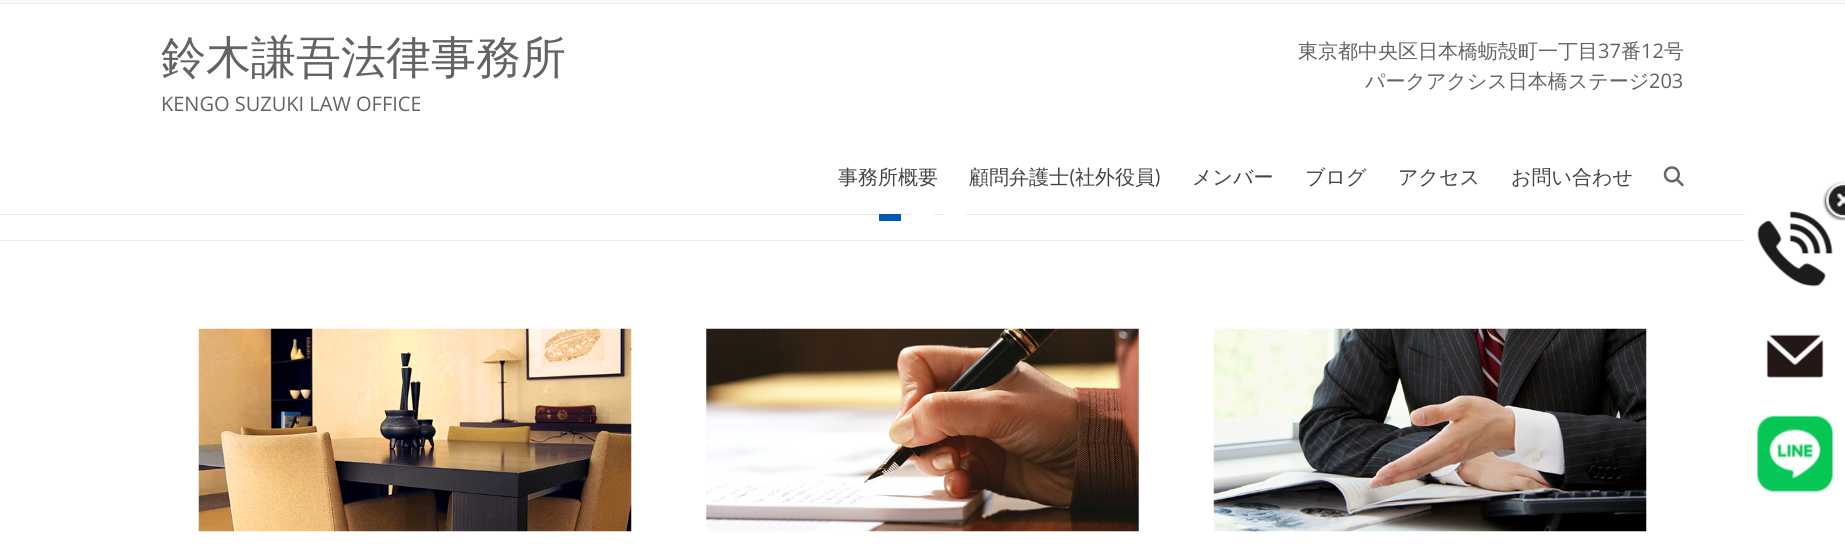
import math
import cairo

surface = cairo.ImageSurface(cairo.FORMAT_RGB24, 1845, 551)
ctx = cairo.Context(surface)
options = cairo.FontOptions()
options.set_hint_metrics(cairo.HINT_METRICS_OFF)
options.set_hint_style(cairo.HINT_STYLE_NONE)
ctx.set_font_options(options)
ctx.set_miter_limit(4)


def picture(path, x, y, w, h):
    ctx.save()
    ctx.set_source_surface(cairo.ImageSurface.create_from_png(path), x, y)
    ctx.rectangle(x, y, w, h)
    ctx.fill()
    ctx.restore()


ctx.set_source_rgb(1, 1, 1)
ctx.paint()
ctx.set_source_rgb(0.973, 0.973, 0.973)
ctx.rectangle(0, 0, 1845, 3)
ctx.fill()
ctx.set_source_rgb(0.918, 0.918, 0.918)
ctx.rectangle(0, 3, 1845, 1)
ctx.fill()
ctx.rectangle(0, 214, 1745, 1)
ctx.fill()
ctx.select_font_face("WenQuanYi Zen Hei Medium")
ctx.set_font_size(45)
ctx.set_source_rgb(0.388, 0.388, 0.388)
ctx.move_to(161, 73)
ctx.show_text("鈴木謙吾法律事務所")
ctx.select_font_face("Open Sans")
ctx.set_font_size(20)
ctx.move_to(161, 111)
ctx.show_text("KENGO SUZUKI LAW OFFICE")
ctx.select_font_face("WenQuanYi Zen Hei Medium")
ctx.move_to(1298, 58)
ctx.show_text("東京都中央区日本橋蛎殻町一丁目")
ctx.select_font_face("Open Sans")
ctx.move_to(1598, 58)
ctx.show_text("37")
ctx.select_font_face("WenQuanYi Zen Hei Medium")
ctx.move_to(1621, 58)
ctx.show_text("番")
ctx.select_font_face("Open Sans")
ctx.move_to(1641, 58)
ctx.show_text("12")
ctx.select_font_face("WenQuanYi Zen Hei Medium")
ctx.move_to(1664, 58)
ctx.show_text("号")
ctx.move_to(1365, 88)
ctx.show_text("パークアクシス日本橋ステージ")
ctx.select_font_face("Open Sans")
ctx.move_to(1649, 88)
ctx.show_text("203")
ctx.select_font_face("WenQuanYi Zen Hei Medium")
ctx.set_source_rgb(0.267, 0.267, 0.267)
ctx.move_to(838, 184)
ctx.show_text("事務所概要")
ctx.move_to(969, 184)
ctx.show_text("顧問弁護士 社外役員")
ctx.select_font_face("Lato")
ctx.move_to(1069, 184)
ctx.show_text("(")
ctx.move_to(1155, 184)
ctx.show_text(")")
ctx.select_font_face("WenQuanYi Zen Hei Medium")
ctx.move_to(1192, 184)
ctx.show_text("メンバー")
ctx.move_to(1305, 184)
ctx.show_text("ブログ")
ctx.move_to(1398, 184)
ctx.show_text("アクセス")
ctx.move_to(1511, 184)
ctx.show_text("お問い合わせ")
picture("img1.png", 1663, 166, 21, 21)
ctx.set_source_rgb(0.918, 0.918, 0.918)
ctx.rectangle(0, 240, 1745, 1)
ctx.fill()
ctx.set_source_rgb(0, 0.349, 0.698)
ctx.rectangle(879, 214, 22, 7)
ctx.fill()
ctx.set_source_rgb(1, 1, 1)
ctx.rectangle(911, 214, 23, 1)
ctx.fill()
ctx.rectangle(944, 214, 22, 1)
ctx.fill()
picture("img2.png", 198, 328, 434, 204)
picture("img3.png", 706, 328, 433, 204)
picture("img4.png", 1213, 328, 434, 204)
picture("img6.png", 1757, 211, 76, 76)
picture("img5.png", 1823, 181, 22, 40)
picture("img7.png", 1766, 334, 58, 44)
picture("img8.png", 1757, 415, 76, 77)
surface.write_to_png("page.png")
